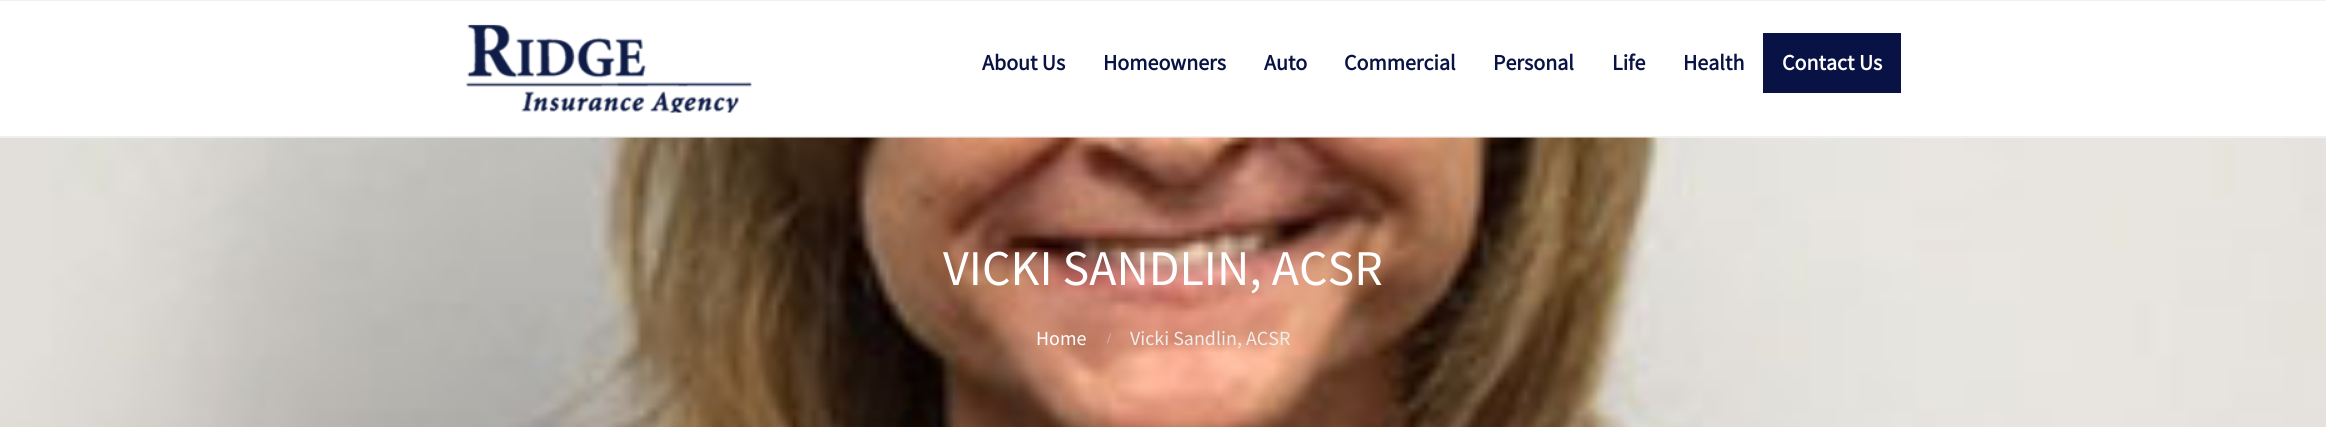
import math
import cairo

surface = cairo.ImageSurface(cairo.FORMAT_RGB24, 2326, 427)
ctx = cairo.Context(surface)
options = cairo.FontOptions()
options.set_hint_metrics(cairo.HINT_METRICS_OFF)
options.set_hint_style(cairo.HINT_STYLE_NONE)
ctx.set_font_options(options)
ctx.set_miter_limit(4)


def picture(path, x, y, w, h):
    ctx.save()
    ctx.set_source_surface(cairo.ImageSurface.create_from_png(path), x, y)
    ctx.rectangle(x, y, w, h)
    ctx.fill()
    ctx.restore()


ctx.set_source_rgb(1, 1, 1)
ctx.paint()
ctx.set_source_rgb(0.941, 0.941, 0.941)
ctx.rectangle(0, 0, 2326, 1)
ctx.fill()
ctx.rectangle(0, 136, 2326, 1)
ctx.fill()
picture("img1.png", 466, 24, 286, 89)
ctx.select_font_face("Source Sans Pro", cairo.FONT_SLANT_NORMAL, cairo.FONT_WEIGHT_BOLD)
ctx.set_font_size(22)
ctx.set_source_rgb(0.039, 0.071, 0.271)
ctx.move_to(982, 70)
ctx.show_text("About Us")
ctx.move_to(1103, 70)
ctx.show_text("Homeowners")
ctx.move_to(1264, 70)
ctx.show_text("Auto")
ctx.move_to(1344, 70)
ctx.show_text("Commercial")
ctx.move_to(1493, 70)
ctx.show_text("Personal")
ctx.move_to(1612, 70)
ctx.show_text("Life")
ctx.move_to(1683, 70)
ctx.show_text("Health")
ctx.rectangle(1763, 33, 138, 60)
ctx.fill()
ctx.set_source_rgb(1, 1, 1)
ctx.move_to(1782, 70)
ctx.show_text("Contact Us")
picture("img2.png", 0, 137, 2326, 290)
ctx.select_font_face("Source Sans Pro")
ctx.set_font_size(50)
ctx.move_to(943, 285)
ctx.show_text("VICKI SANDLIN, ACSR")
ctx.set_font_size(20)
ctx.move_to(1036, 345)
ctx.show_text("Home")
ctx.select_font_face("Liberation Serif", cairo.FONT_SLANT_NORMAL, cairo.FONT_WEIGHT_BOLD)
ctx.set_font_size(15)
ctx.set_source_rgb(0.827, 0.69, 0.647)
ctx.move_to(1107, 343)
ctx.show_text("/")
ctx.select_font_face("Source Sans Pro")
ctx.set_font_size(20)
ctx.set_source_rgb(0.933, 0.933, 0.933)
ctx.move_to(1130, 345)
ctx.show_text("Vicki Sandlin, ACSR")
surface.write_to_png("page.png")
